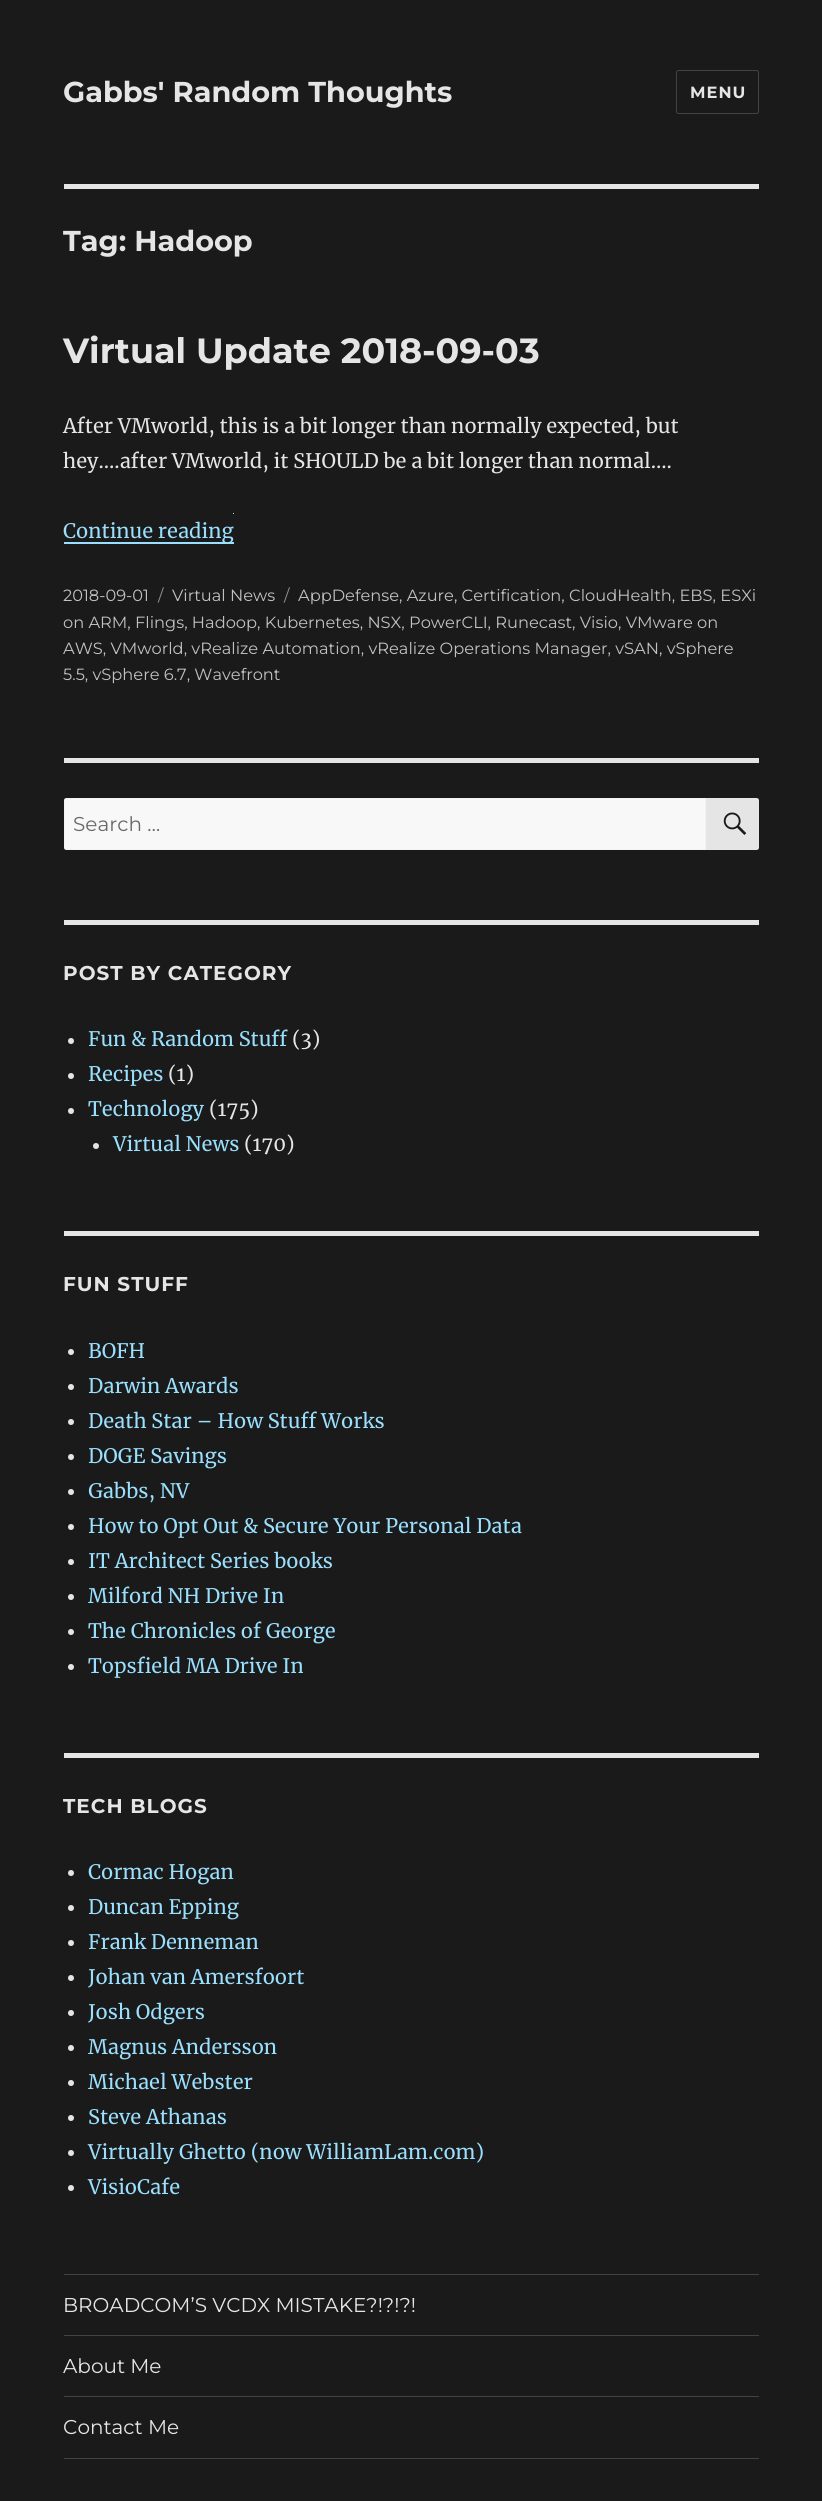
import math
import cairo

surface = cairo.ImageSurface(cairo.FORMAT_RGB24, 822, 2501)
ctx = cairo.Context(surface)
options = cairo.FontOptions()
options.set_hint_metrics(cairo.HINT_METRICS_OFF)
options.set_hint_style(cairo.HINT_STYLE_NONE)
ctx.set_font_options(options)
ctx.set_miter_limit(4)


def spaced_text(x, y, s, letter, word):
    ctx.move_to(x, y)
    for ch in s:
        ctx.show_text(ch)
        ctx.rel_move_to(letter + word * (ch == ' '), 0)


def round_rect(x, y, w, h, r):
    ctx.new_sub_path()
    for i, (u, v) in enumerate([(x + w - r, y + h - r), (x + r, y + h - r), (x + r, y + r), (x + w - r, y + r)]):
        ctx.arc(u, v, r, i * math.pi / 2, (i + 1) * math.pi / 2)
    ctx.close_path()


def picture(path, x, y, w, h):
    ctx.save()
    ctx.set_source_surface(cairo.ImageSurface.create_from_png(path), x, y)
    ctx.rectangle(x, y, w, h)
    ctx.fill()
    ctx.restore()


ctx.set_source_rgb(0.102, 0.102, 0.102)
ctx.paint()
ctx.select_font_face("Montserrat Thin")
ctx.set_font_size(28.75)
ctx.set_source_rgb(0.898, 0.898, 0.898)
ctx.move_to(63, 102)
ctx.show_text("Gabbs' Random Thoughts")
round_rect(676.5, 70.5, 82, 43, 2)
ctx.set_source_rgb(0.263, 0.263, 0.263)
ctx.set_line_width(1)
ctx.stroke()
ctx.set_font_size(16.25)
ctx.set_source_rgb(0.898, 0.898, 0.898)
spaced_text(690, 98, "MENU", 1, 0)
ctx.rectangle(64, 184, 695, 5)
ctx.fill()
ctx.set_font_size(28.75)
ctx.move_to(63, 251)
ctx.show_text("Tag: Hadoop")
ctx.set_font_size(35)
ctx.move_to(63, 363)
ctx.show_text("Virtual Update 2018-09-03")
ctx.select_font_face("Merriweather")
ctx.set_font_size(20)
ctx.move_to(63, 433)
ctx.show_text("After VMworld, this is a bit longer than normally expected, but")
ctx.move_to(63, 468)
ctx.show_text("hey….after VMworld, it SHOULD be a bit longer than normal….")
ctx.set_source_rgb(0.604, 0.875, 0.992)
ctx.new_path()
ctx.move_to(64, 542)
ctx.line_to(64, 544)
ctx.line_to(234, 544)
ctx.line_to(234, 519)
ctx.line_to(234, 542)
ctx.close_path()
ctx.fill()
ctx.move_to(63, 538)
ctx.show_text("Continue reading")
ctx.rectangle(233, 513, 1, 1)
ctx.fill()
ctx.select_font_face("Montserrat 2 Thin")
ctx.set_font_size(16.25)
ctx.set_source_rgb(0.757, 0.757, 0.757)
ctx.move_to(63, 601)
ctx.show_text("2018-09-01")
ctx.set_source_rgb(0.561, 0.561, 0.561)
ctx.move_to(158, 601)
ctx.show_text("/")
ctx.set_source_rgb(0.757, 0.757, 0.757)
ctx.move_to(172, 601)
ctx.show_text("Virtual News")
ctx.set_source_rgb(0.561, 0.561, 0.561)
ctx.move_to(284, 601)
ctx.show_text("/")
ctx.set_source_rgb(0.757, 0.757, 0.757)
ctx.move_to(298, 601)
ctx.show_text("AppDefense, Azure, Certification, CloudHealth, EBS, ESXi")
ctx.move_to(63, 628)
ctx.show_text("on ARM, Flings, Hadoop, Kubernetes, NSX, PowerCLI, Runecast, Visio, VMware on")
ctx.move_to(63, 654)
ctx.show_text("AWS, VMworld, vRealize Automation, vRealize Operations Manager, vSAN, vSphere")
ctx.move_to(63, 680)
ctx.show_text("5.5, vSphere 6.7, Wavefront")
ctx.set_source_rgb(0.898, 0.898, 0.898)
ctx.rectangle(64, 758, 695, 5)
ctx.fill()
ctx.set_source_rgb(0.969, 0.969, 0.969)
ctx.new_path()
ctx.move_to(66.5, 798)
ctx.line_to(706, 798)
ctx.line_to(706, 850)
ctx.line_to(66.5, 850)
ctx.curve_to(65, 850, 64, 849, 64, 847.5)
ctx.line_to(64, 800.5)
ctx.curve_to(64, 799, 65, 798, 66.5, 798)
ctx.close_path()
ctx.fill()
ctx.new_path()
ctx.move_to(66.5, 798.5)
ctx.line_to(705.5, 798.5)
ctx.line_to(705.5, 849.5)
ctx.line_to(66.5, 849.5)
ctx.curve_to(65.5, 849.5, 64.5, 848.5, 64.5, 847.5)
ctx.line_to(64.5, 800.5)
ctx.curve_to(64.5, 799.5, 65.5, 798.5, 66.5, 798.5)
ctx.close_path()
ctx.set_source_rgba(0.898, 0.898, 0.898, 0.2)
ctx.stroke()
ctx.set_font_size(20)
ctx.set_source_rgb(0.408, 0.408, 0.408)
ctx.move_to(73, 831)
ctx.show_text("Search …")
ctx.set_source_rgb(0.898, 0.898, 0.898)
ctx.new_path()
ctx.move_to(706, 798)
ctx.line_to(756.5, 798)
ctx.curve_to(758, 798, 759, 799, 759, 800.5)
ctx.line_to(759, 847.5)
ctx.curve_to(759, 849, 758, 850, 756.5, 850)
ctx.line_to(706, 850)
ctx.close_path()
ctx.fill()
picture("img1.png", 723, 812, 24, 23)
ctx.rectangle(64, 920, 695, 5)
ctx.fill()
ctx.select_font_face("Montserrat Thin")
spaced_text(63, 980, "POST BY CATEGORY", 1, 0)
ctx.new_path()
ctx.arc(71, 1041, 3, 0, 2 * math.pi)
ctx.fill()
ctx.select_font_face("Merriweather")
ctx.set_source_rgb(0.604, 0.875, 0.992)
ctx.move_to(88, 1046)
ctx.show_text("Fun & Random Stuff")
ctx.set_source_rgb(0.898, 0.898, 0.898)
ctx.move_to(292, 1046)
ctx.show_text("(3)")
ctx.new_path()
ctx.arc(71, 1076, 3, 0, 2 * math.pi)
ctx.fill()
ctx.set_source_rgb(0.604, 0.875, 0.992)
ctx.move_to(88, 1081)
ctx.show_text("Recipes")
ctx.set_source_rgb(0.898, 0.898, 0.898)
ctx.move_to(168, 1081)
ctx.show_text("(1)")
ctx.new_path()
ctx.arc(71, 1111, 3, 0, 2 * math.pi)
ctx.fill()
ctx.set_source_rgb(0.604, 0.875, 0.992)
ctx.move_to(88, 1116)
ctx.show_text("Technology")
ctx.set_source_rgb(0.898, 0.898, 0.898)
ctx.move_to(209, 1116)
ctx.show_text("(175)")
ctx.new_path()
ctx.arc(96, 1146, 3, 0, 2 * math.pi)
ctx.fill()
ctx.set_source_rgb(0.604, 0.875, 0.992)
ctx.move_to(113, 1151)
ctx.show_text("Virtual News")
ctx.set_source_rgb(0.898, 0.898, 0.898)
ctx.move_to(244, 1151)
ctx.show_text("(170)")
ctx.rectangle(64, 1231, 695, 5)
ctx.fill()
ctx.select_font_face("Montserrat Thin")
spaced_text(63, 1291, "FUN STUFF", 1, 0)
ctx.new_path()
ctx.arc(71, 1352, 3, 0, 2 * math.pi)
ctx.fill()
ctx.select_font_face("Merriweather")
ctx.set_source_rgb(0.604, 0.875, 0.992)
ctx.move_to(88, 1358)
ctx.show_text("BOFH")
ctx.set_source_rgb(0.898, 0.898, 0.898)
ctx.new_path()
ctx.arc(71, 1387, 3, 0, 2 * math.pi)
ctx.fill()
ctx.set_source_rgb(0.604, 0.875, 0.992)
ctx.move_to(88, 1393)
ctx.show_text("Darwin Awards")
ctx.set_source_rgb(0.898, 0.898, 0.898)
ctx.new_path()
ctx.arc(71, 1422, 3, 0, 2 * math.pi)
ctx.fill()
ctx.set_source_rgb(0.604, 0.875, 0.992)
ctx.move_to(88, 1428)
ctx.show_text("Death Star – How Stuff Works")
ctx.set_source_rgb(0.898, 0.898, 0.898)
ctx.new_path()
ctx.arc(71, 1457, 3, 0, 2 * math.pi)
ctx.fill()
ctx.set_source_rgb(0.604, 0.875, 0.992)
ctx.move_to(88, 1463)
ctx.show_text("DOGE Savings")
ctx.set_source_rgb(0.898, 0.898, 0.898)
ctx.new_path()
ctx.arc(71, 1492, 3, 0, 2 * math.pi)
ctx.fill()
ctx.set_source_rgb(0.604, 0.875, 0.992)
ctx.move_to(88, 1498)
ctx.show_text("Gabbs, NV")
ctx.set_source_rgb(0.898, 0.898, 0.898)
ctx.new_path()
ctx.arc(71, 1527, 3, 0, 2 * math.pi)
ctx.fill()
ctx.set_source_rgb(0.604, 0.875, 0.992)
ctx.move_to(88, 1533)
ctx.show_text("How to Opt Out & Secure Your Personal Data")
ctx.set_source_rgb(0.898, 0.898, 0.898)
ctx.new_path()
ctx.arc(71, 1562, 3, 0, 2 * math.pi)
ctx.fill()
ctx.set_source_rgb(0.604, 0.875, 0.992)
ctx.move_to(88, 1568)
ctx.show_text("IT Architect Series books")
ctx.set_source_rgb(0.898, 0.898, 0.898)
ctx.new_path()
ctx.arc(71, 1597, 3, 0, 2 * math.pi)
ctx.fill()
ctx.set_source_rgb(0.604, 0.875, 0.992)
ctx.move_to(88, 1603)
ctx.show_text("Milford NH Drive In")
ctx.set_source_rgb(0.898, 0.898, 0.898)
ctx.new_path()
ctx.arc(71, 1632, 3, 0, 2 * math.pi)
ctx.fill()
ctx.set_source_rgb(0.604, 0.875, 0.992)
ctx.move_to(88, 1638)
ctx.show_text("The Chronicles of George")
ctx.set_source_rgb(0.898, 0.898, 0.898)
ctx.new_path()
ctx.arc(71, 1667, 3, 0, 2 * math.pi)
ctx.fill()
ctx.set_source_rgb(0.604, 0.875, 0.992)
ctx.move_to(88, 1673)
ctx.show_text("Topsfield MA Drive In")
ctx.set_source_rgb(0.898, 0.898, 0.898)
ctx.rectangle(64, 1753, 695, 5)
ctx.fill()
ctx.select_font_face("Montserrat Thin")
spaced_text(63, 1813, "TECH BLOGS", 1, 0)
ctx.new_path()
ctx.arc(71, 1873, 3, 0, 2 * math.pi)
ctx.fill()
ctx.select_font_face("Merriweather")
ctx.set_source_rgb(0.604, 0.875, 0.992)
ctx.move_to(88, 1879)
ctx.show_text("Cormac Hogan")
ctx.set_source_rgb(0.898, 0.898, 0.898)
ctx.new_path()
ctx.arc(71, 1908, 3, 0, 2 * math.pi)
ctx.fill()
ctx.set_source_rgb(0.604, 0.875, 0.992)
ctx.move_to(88, 1914)
ctx.show_text("Duncan Epping")
ctx.set_source_rgb(0.898, 0.898, 0.898)
ctx.new_path()
ctx.arc(71, 1943, 3, 0, 2 * math.pi)
ctx.fill()
ctx.set_source_rgb(0.604, 0.875, 0.992)
ctx.move_to(88, 1949)
ctx.show_text("Frank Denneman")
ctx.set_source_rgb(0.898, 0.898, 0.898)
ctx.new_path()
ctx.arc(71, 1978, 3, 0, 2 * math.pi)
ctx.fill()
ctx.set_source_rgb(0.604, 0.875, 0.992)
ctx.move_to(88, 1984)
ctx.show_text("Johan van Amersfoort")
ctx.set_source_rgb(0.898, 0.898, 0.898)
ctx.new_path()
ctx.arc(71, 2013, 3, 0, 2 * math.pi)
ctx.fill()
ctx.set_source_rgb(0.604, 0.875, 0.992)
ctx.move_to(88, 2019)
ctx.show_text("Josh Odgers")
ctx.set_source_rgb(0.898, 0.898, 0.898)
ctx.new_path()
ctx.arc(71, 2048, 3, 0, 2 * math.pi)
ctx.fill()
ctx.set_source_rgb(0.604, 0.875, 0.992)
ctx.move_to(88, 2054)
ctx.show_text("Magnus Andersson")
ctx.set_source_rgb(0.898, 0.898, 0.898)
ctx.new_path()
ctx.arc(71, 2083, 3, 0, 2 * math.pi)
ctx.fill()
ctx.set_source_rgb(0.604, 0.875, 0.992)
ctx.move_to(88, 2089)
ctx.show_text("Michael Webster")
ctx.set_source_rgb(0.898, 0.898, 0.898)
ctx.new_path()
ctx.arc(71, 2118, 3, 0, 2 * math.pi)
ctx.fill()
ctx.set_source_rgb(0.604, 0.875, 0.992)
ctx.move_to(88, 2124)
ctx.show_text("Steve Athanas")
ctx.set_source_rgb(0.898, 0.898, 0.898)
ctx.new_path()
ctx.arc(71, 2153, 3, 0, 2 * math.pi)
ctx.fill()
ctx.set_source_rgb(0.604, 0.875, 0.992)
ctx.move_to(88, 2159)
ctx.show_text("Virtually Ghetto (now WilliamLam.com)")
ctx.set_source_rgb(0.898, 0.898, 0.898)
ctx.new_path()
ctx.arc(71, 2188, 3, 0, 2 * math.pi)
ctx.fill()
ctx.set_source_rgb(0.604, 0.875, 0.992)
ctx.move_to(88, 2194)
ctx.show_text("VisioCafe")
ctx.set_source_rgb(0.263, 0.263, 0.263)
ctx.rectangle(64, 2458, 695, 1)
ctx.fill()
ctx.rectangle(64, 2274, 695, 1)
ctx.fill()
ctx.select_font_face("Montserrat 2 Thin")
ctx.set_source_rgb(0.898, 0.898, 0.898)
ctx.move_to(63, 2312)
ctx.show_text("BROADCOM’S VCDX MISTAKE?!?!?!")
ctx.set_source_rgb(0.263, 0.263, 0.263)
ctx.rectangle(64, 2335, 695, 1)
ctx.fill()
ctx.set_source_rgb(0.898, 0.898, 0.898)
ctx.move_to(63, 2373)
ctx.show_text("About Me")
ctx.set_source_rgb(0.263, 0.263, 0.263)
ctx.rectangle(64, 2396, 695, 1)
ctx.fill()
ctx.set_source_rgb(0.898, 0.898, 0.898)
ctx.move_to(63, 2434)
ctx.show_text("Contact Me")
surface.write_to_png("page.png")
